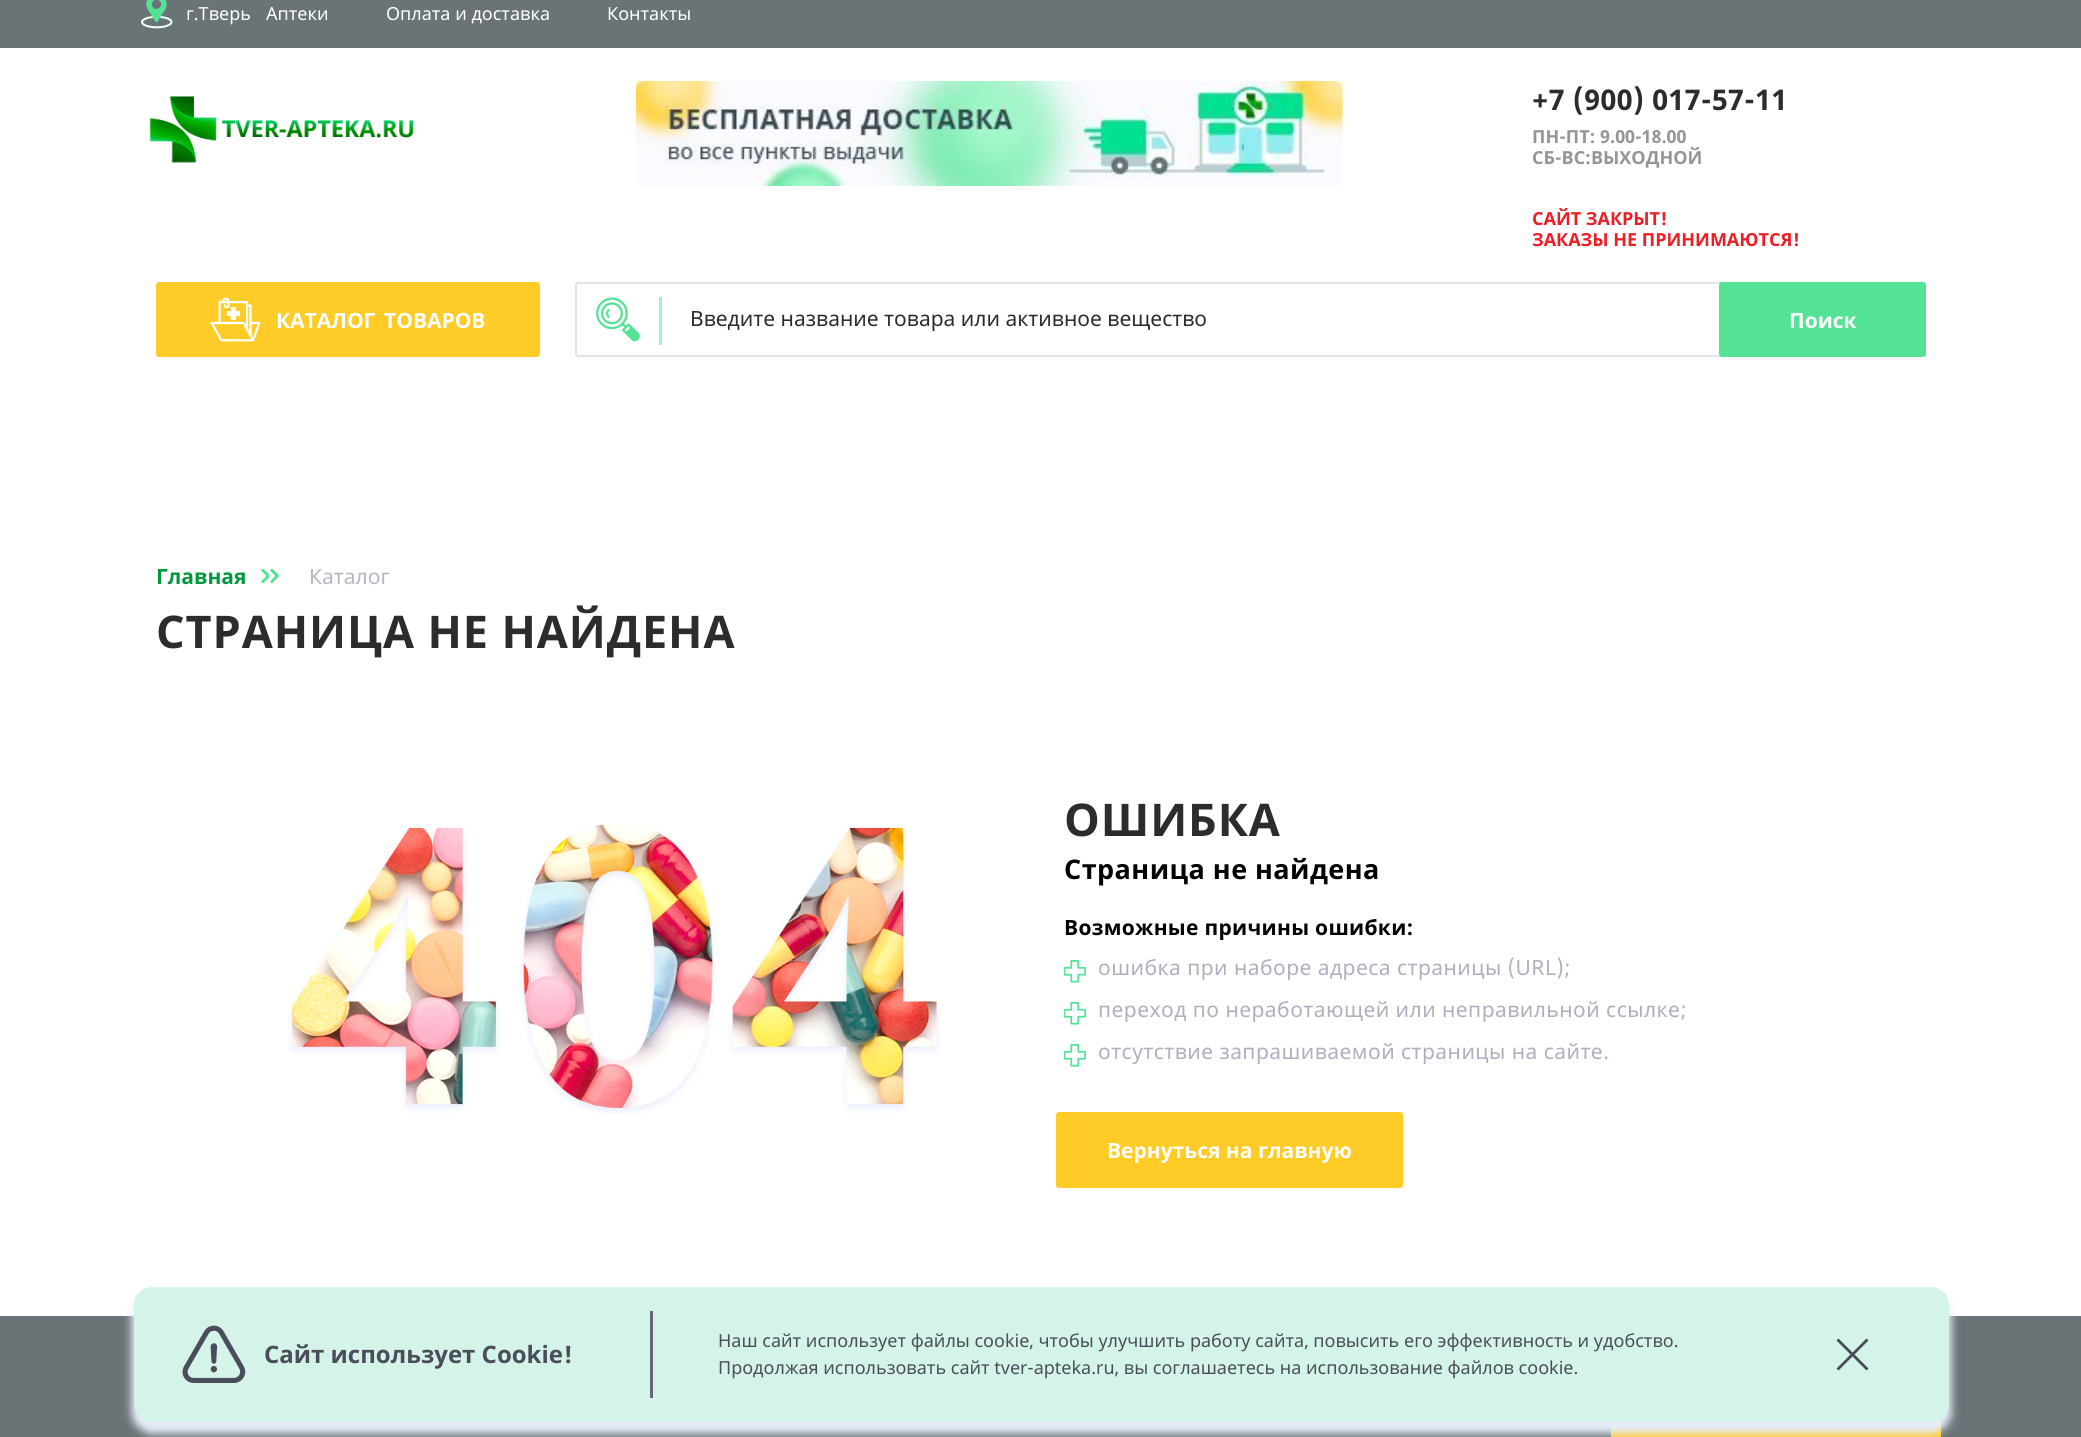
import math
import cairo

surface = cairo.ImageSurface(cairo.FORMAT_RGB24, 2081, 1437)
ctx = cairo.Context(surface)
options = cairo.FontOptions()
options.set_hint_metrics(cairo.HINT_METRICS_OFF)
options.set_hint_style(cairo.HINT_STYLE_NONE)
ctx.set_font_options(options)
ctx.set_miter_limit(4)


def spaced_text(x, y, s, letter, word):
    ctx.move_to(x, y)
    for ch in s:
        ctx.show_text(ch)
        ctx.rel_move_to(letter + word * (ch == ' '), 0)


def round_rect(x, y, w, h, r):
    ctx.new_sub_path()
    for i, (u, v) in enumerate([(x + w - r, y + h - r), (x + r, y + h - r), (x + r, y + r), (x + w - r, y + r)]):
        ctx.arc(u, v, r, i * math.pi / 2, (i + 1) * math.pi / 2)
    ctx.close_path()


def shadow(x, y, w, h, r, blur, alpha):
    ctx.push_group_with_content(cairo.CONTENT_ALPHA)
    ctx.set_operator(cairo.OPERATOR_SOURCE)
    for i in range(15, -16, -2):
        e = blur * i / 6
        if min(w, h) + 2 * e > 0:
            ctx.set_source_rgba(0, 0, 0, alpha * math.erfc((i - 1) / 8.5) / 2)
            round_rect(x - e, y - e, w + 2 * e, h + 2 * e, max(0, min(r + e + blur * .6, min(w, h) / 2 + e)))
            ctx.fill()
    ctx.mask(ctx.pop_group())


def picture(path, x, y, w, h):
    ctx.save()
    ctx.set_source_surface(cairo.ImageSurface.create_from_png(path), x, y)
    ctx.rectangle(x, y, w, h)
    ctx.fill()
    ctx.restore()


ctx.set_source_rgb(1, 1, 1)
ctx.paint()
ctx.set_source_rgb(0.416, 0.451, 0.463)
ctx.rectangle(0, 0, 2081, 48)
ctx.fill()
picture("img1.png", 141, 0, 32, 29)
ctx.select_font_face("Noto Sans")
ctx.set_font_size(18)
ctx.set_source_rgb(1, 1, 1)
ctx.move_to(186, 20)
ctx.show_text("г.Тверь")
ctx.move_to(266, 20)
ctx.show_text("Аптеки")
ctx.move_to(386, 20)
ctx.show_text("Оплата и доставка")
ctx.move_to(607, 20)
ctx.show_text("Контакты")
picture("img2.png", 149, 96, 265, 67)
picture("img3.png", 636, 81, 707, 105)
ctx.select_font_face("Noto Sans", cairo.FONT_SLANT_NORMAL, cairo.FONT_WEIGHT_BOLD)
ctx.set_font_size(28.5)
ctx.set_source_rgb(0.173, 0.173, 0.173)
spaced_text(1532, 110, "+7 (900) 017-57-11", 0.5, 0)
ctx.set_font_size(18)
ctx.set_source_rgb(0.584, 0.584, 0.584)
ctx.move_to(1532, 143)
ctx.show_text("ПН-ПТ: 9.00-18.00")
ctx.move_to(1532, 164)
ctx.show_text("СБ-ВС:ВЫХОДНОЙ")
ctx.set_source_rgb(0.933, 0.114, 0.141)
ctx.move_to(1532, 225)
ctx.show_text("САЙТ ЗАКРЫТ!")
ctx.move_to(1532, 246)
ctx.show_text("ЗАКАЗЫ НЕ ПРИНИМАЮТСЯ!")
ctx.set_source_rgb(1, 0.8, 0.153)
round_rect(156, 282, 384, 75, 3)
ctx.fill()
picture("img4.png", 210, 297, 51, 45)
ctx.set_font_size(21)
ctx.set_source_rgb(1, 1, 1)
ctx.move_to(276, 328)
ctx.show_text("КАТАЛОГ")
ctx.move_to(384, 328)
ctx.show_text("ТОВАРОВ")
round_rect(576, 283, 1349, 73, 2)
ctx.set_source_rgb(0.882, 0.894, 0.929)
ctx.stroke()
picture("img5.png", 596, 297, 44, 45)
ctx.set_source_rgb(0.663, 0.941, 0.792)
ctx.rectangle(659, 297, 3, 48)
ctx.fill()
ctx.select_font_face("Noto Sans")
ctx.set_source_rgb(0.173, 0.173, 0.173)
ctx.move_to(690, 326)
ctx.show_text("Введите название товара или активное вещество")
ctx.set_source_rgb(0.329, 0.886, 0.584)
round_rect(1719, 282, 207, 75, 3)
ctx.fill()
ctx.select_font_face("Noto Sans", cairo.FONT_SLANT_NORMAL, cairo.FONT_WEIGHT_BOLD)
ctx.set_source_rgb(1, 1, 1)
ctx.move_to(1789, 328)
ctx.show_text("Поиск")
ctx.set_source_rgb(0, 0.596, 0.235)
ctx.move_to(156, 584)
ctx.show_text("Главная")
picture("img6.png", 261, 569, 9, 15)
picture("img6.png", 270, 569, 9, 15)
ctx.select_font_face("Noto Sans")
ctx.set_source_rgb(0.702, 0.714, 0.765)
ctx.move_to(309, 584)
ctx.show_text("Каталог")
ctx.select_font_face("Noto Sans", cairo.FONT_SLANT_NORMAL, cairo.FONT_WEIGHT_BOLD)
ctx.set_font_size(45)
ctx.set_source_rgb(0.173, 0.173, 0.173)
spaced_text(156, 648, "СТРАНИЦА НЕ НАЙДЕНА", 0.9, 0)
picture("img7.png", 288, 824, 652, 290)
spaced_text(1064, 836, "ОШИБКА", 0.9, 0)
ctx.set_font_size(27)
ctx.set_source_rgb(0, 0, 0)
spaced_text(1064, 879, "Страница не найдена", 0.45, 0)
ctx.set_font_size(21)
spaced_text(1064, 935, "Возможные причины ошибки:", 0.3, 0)
picture("img8.png", 1064, 960, 22, 23)
ctx.select_font_face("Noto Sans")
ctx.set_source_rgb(0.678, 0.69, 0.745)
spaced_text(1098, 975, "ошибка при наборе адреса страницы (URL);", 0.45, 0)
picture("img8.png", 1064, 1002, 22, 23)
spaced_text(1098, 1017, "переход по неработающей или неправильной ссылке;", 0.45, 0)
picture("img8.png", 1064, 1044, 22, 23)
spaced_text(1098, 1059, "отсутствие запрашиваемой страницы на сайте.", 0.45, 0)
ctx.set_source_rgb(1, 0.8, 0.153)
round_rect(1056, 1112, 347, 76, 3)
ctx.fill()
ctx.select_font_face("Noto Sans", cairo.FONT_SLANT_NORMAL, cairo.FONT_WEIGHT_BOLD)
ctx.set_source_rgb(1, 1, 1)
ctx.move_to(1107, 1158)
ctx.show_text("Вернуться на главную")
ctx.set_source_rgb(0.416, 0.451, 0.463)
ctx.rectangle(0, 1316, 2081, 121)
ctx.fill()
picture("img9.png", 173, 1422, 23, 2)
ctx.set_source_rgb(1, 0.8, 0.153)
ctx.rectangle(1611, 1419, 330, 18)
ctx.fill()
ctx.set_source_rgb(0.902, 0.922, 0.98)
shadow(134, 1296, 1815, 135, 18, 5, 1)
shadow(134, 1296, 1815, 135, 18, 5, 1)
ctx.set_source_rgb(0.831, 0.957, 0.914)
round_rect(134, 1287, 1815, 135, 18)
ctx.fill()
ctx.set_source_rgb(0.396, 0.408, 0.482)
ctx.rectangle(650, 1311, 3, 87)
ctx.fill()
picture("img10.png", 182, 1325, 64, 58)
ctx.set_font_size(24)
ctx.set_source_rgb(0.294, 0.302, 0.357)
ctx.move_to(264, 1363)
ctx.show_text("Сайт использует Cookie!")
ctx.select_font_face("Noto Sans")
ctx.set_font_size(18)
ctx.move_to(718, 1347)
ctx.show_text("Наш сайт использует файлы cookie, чтобы улучшить работу сайта, повысить его эффективность и удобство.")
ctx.move_to(718, 1374)
ctx.show_text("Продолжая использовать сайт tver-apteka.ru, вы соглашаетесь на использование файлов cookie.")
ctx.new_path()
ctx.move_to(1867.5, 1339.5)
ctx.line_to(1852.5, 1354.5)
ctx.move_to(1837.5, 1369.5)
ctx.line_to(1852.5, 1354.5)
ctx.move_to(1852.5, 1354.5)
ctx.line_to(1837.5, 1339.5)
ctx.line_to(1867.5, 1369.5)
ctx.set_source_rgb(0.282, 0.29, 0.341)
ctx.set_line_width(2.8)
ctx.stroke()
surface.write_to_png("page.png")
